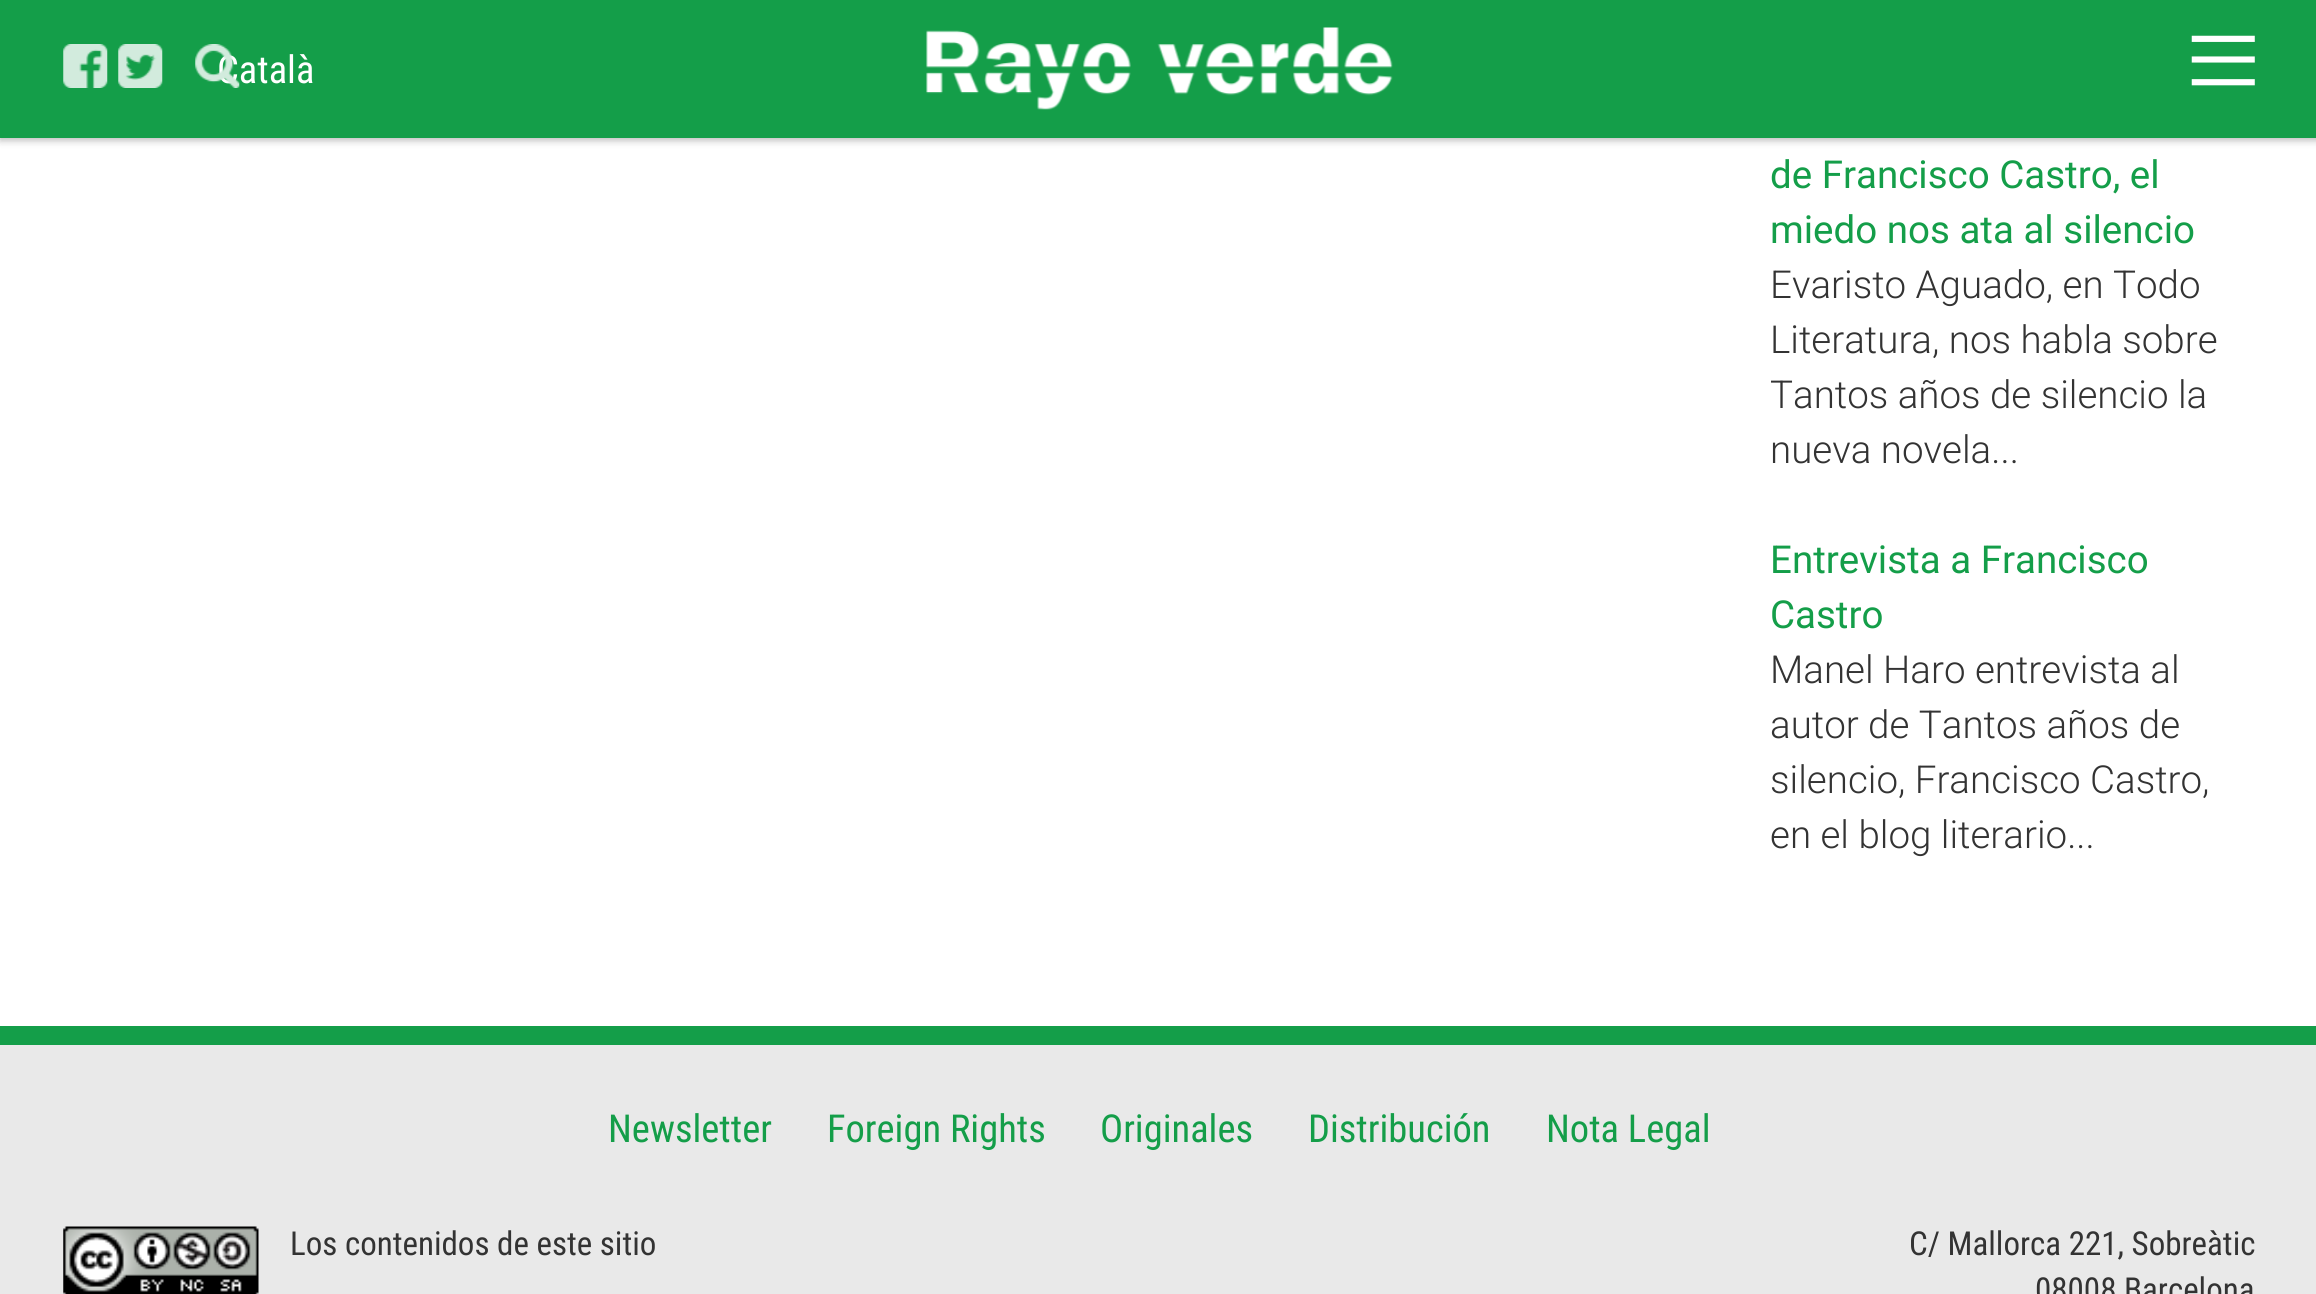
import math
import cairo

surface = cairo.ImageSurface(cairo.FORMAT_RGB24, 2316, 1294)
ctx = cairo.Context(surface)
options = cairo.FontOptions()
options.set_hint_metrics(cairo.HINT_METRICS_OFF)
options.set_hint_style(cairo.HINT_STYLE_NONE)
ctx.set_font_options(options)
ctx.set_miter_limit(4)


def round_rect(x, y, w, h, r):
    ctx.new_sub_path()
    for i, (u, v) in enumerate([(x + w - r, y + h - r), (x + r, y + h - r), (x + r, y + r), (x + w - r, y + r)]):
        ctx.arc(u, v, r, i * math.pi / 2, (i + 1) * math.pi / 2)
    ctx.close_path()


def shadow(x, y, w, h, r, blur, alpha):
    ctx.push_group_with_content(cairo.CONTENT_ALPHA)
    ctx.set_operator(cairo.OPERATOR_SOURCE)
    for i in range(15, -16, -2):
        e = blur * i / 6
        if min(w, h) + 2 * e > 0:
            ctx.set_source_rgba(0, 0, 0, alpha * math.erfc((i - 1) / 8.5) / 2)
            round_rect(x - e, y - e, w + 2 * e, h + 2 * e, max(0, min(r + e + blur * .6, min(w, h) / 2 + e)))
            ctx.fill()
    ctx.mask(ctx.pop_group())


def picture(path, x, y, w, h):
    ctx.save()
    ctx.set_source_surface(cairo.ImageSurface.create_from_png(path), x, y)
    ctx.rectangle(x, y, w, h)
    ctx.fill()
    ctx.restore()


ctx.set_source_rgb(1, 1, 1)
ctx.paint()
ctx.set_source_rgb(0, 0, 0)
shadow(0, 3, 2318, 137, 0, 4, 0.3)
ctx.set_source_rgb(0.082, 0.62, 0.286)
ctx.rectangle(0, 0, 2316, 138)
ctx.fill()
picture("img1.png", 926, 27, 467, 83)
picture("img2.png", 63, 44, 45, 44)
picture("img3.png", 118, 44, 45, 44)
ctx.select_font_face("Roboto Condensed")
ctx.set_font_size(38.5)
ctx.set_source_rgb(1, 1, 1)
ctx.move_to(217, 83)
ctx.show_text("Català")
picture("img4.png", 195, 44, 45, 44)
picture("img5.png", 2191, 35, 64, 51)
ctx.select_font_face("Roboto")
ctx.set_source_rgb(0.082, 0.62, 0.286)
ctx.move_to(1770, 188)
ctx.show_text("de Francisco Castro, el")
ctx.move_to(1770, 243)
ctx.show_text("miedo nos ata al silencio")
ctx.select_font_face("Roboto Light")
ctx.set_source_rgb(0.2, 0.2, 0.2)
ctx.move_to(1770, 298)
ctx.show_text("Evaristo Aguado, en Todo")
ctx.move_to(1770, 353)
ctx.show_text("Literatura, nos habla sobre")
ctx.move_to(1770, 408)
ctx.show_text("Tantos años de silencio la")
ctx.move_to(1770, 463)
ctx.show_text("nueva novela...")
ctx.select_font_face("Roboto")
ctx.set_source_rgb(0.082, 0.62, 0.286)
ctx.move_to(1770, 573)
ctx.show_text("Entrevista a Francisco")
ctx.move_to(1770, 628)
ctx.show_text("Castro")
ctx.select_font_face("Roboto Light")
ctx.set_source_rgb(0.2, 0.2, 0.2)
ctx.move_to(1770, 683)
ctx.show_text("Manel Haro entrevista al")
ctx.move_to(1770, 738)
ctx.show_text("autor de Tantos años de")
ctx.move_to(1770, 793)
ctx.show_text("silencio, Francisco Castro,")
ctx.move_to(1770, 848)
ctx.show_text("en el blog literario...")
ctx.set_source_rgb(0.914, 0.914, 0.914)
ctx.rectangle(0, 1045, 2316, 249)
ctx.fill()
ctx.set_source_rgb(0.082, 0.62, 0.286)
ctx.rectangle(0, 1026, 2316, 19)
ctx.fill()
ctx.select_font_face("Roboto Condensed")
ctx.move_to(608, 1142)
ctx.show_text("Newsletter")
ctx.move_to(827, 1142)
ctx.show_text("Foreign Rights")
ctx.move_to(1100, 1142)
ctx.show_text("Originales")
ctx.move_to(1308, 1142)
ctx.show_text("Distribución")
ctx.move_to(1546, 1142)
ctx.show_text("Nota Legal")
picture("img6.png", 63, 1226, 196, 68)
ctx.set_font_size(33)
ctx.set_source_rgb(0.2, 0.2, 0.2)
ctx.move_to(290, 1255)
ctx.show_text("Los contenidos de este sitio")
ctx.move_to(1909, 1255)
ctx.show_text("C/ Mallorca 221, Sobreàtic")
ctx.move_to(2035, 1301)
ctx.show_text("08008 Barcelona")
surface.write_to_png("page.png")
